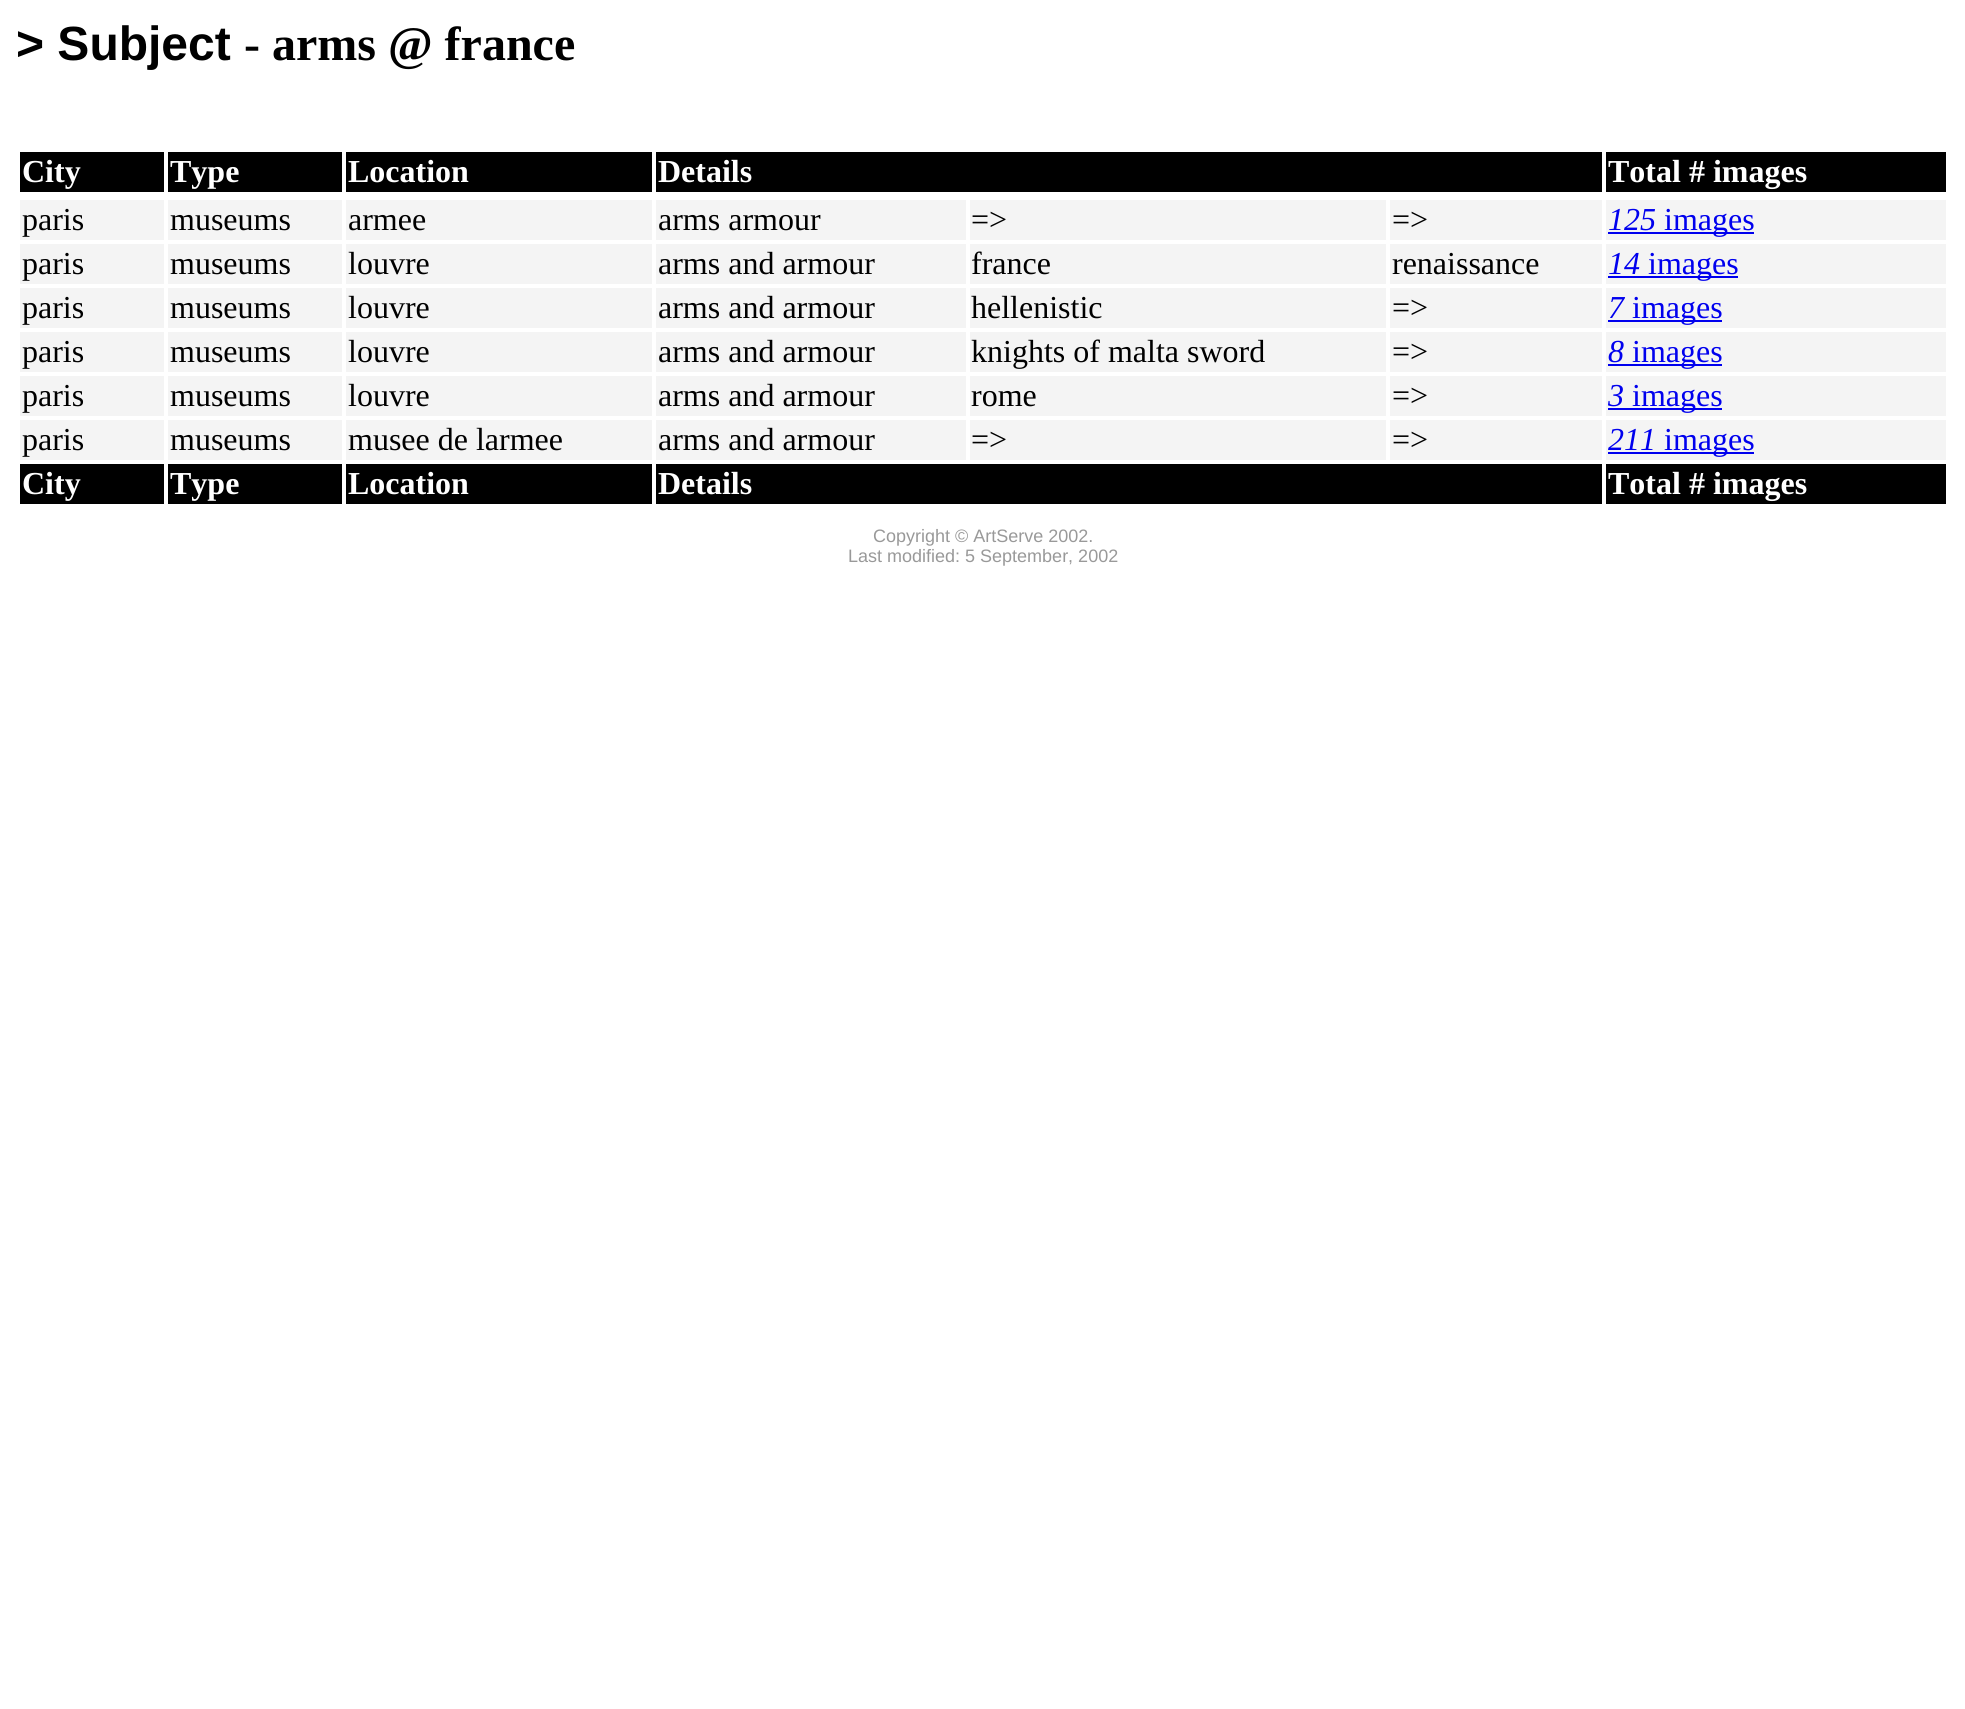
import math
import cairo

surface = cairo.ImageSurface(cairo.FORMAT_RGB24, 1965, 1709)
ctx = cairo.Context(surface)
options = cairo.FontOptions()
options.set_hint_metrics(cairo.HINT_METRICS_OFF)
options.set_hint_style(cairo.HINT_STYLE_NONE)
ctx.set_font_options(options)
ctx.set_miter_limit(4)


ctx.set_source_rgb(1, 1, 1)
ctx.paint()
ctx.select_font_face("Liberation Sans", cairo.FONT_SLANT_NORMAL, cairo.FONT_WEIGHT_BOLD)
ctx.set_font_size(48)
ctx.set_source_rgb(0, 0, 0)
ctx.move_to(16, 60)
ctx.show_text("> Subject")
ctx.select_font_face("Liberation Serif", cairo.FONT_SLANT_NORMAL, cairo.FONT_WEIGHT_BOLD)
ctx.move_to(244, 60)
ctx.show_text("- arms @ france")
ctx.rectangle(20, 152, 144, 40)
ctx.fill()
ctx.set_font_size(32)
ctx.set_source_rgb(1, 1, 1)
ctx.move_to(22, 182)
ctx.show_text("City")
ctx.set_source_rgb(0, 0, 0)
ctx.rectangle(168, 152, 174, 40)
ctx.fill()
ctx.set_source_rgb(1, 1, 1)
ctx.move_to(170, 182)
ctx.show_text("Type")
ctx.set_source_rgb(0, 0, 0)
ctx.rectangle(346, 152, 306, 40)
ctx.fill()
ctx.set_source_rgb(1, 1, 1)
ctx.move_to(348, 182)
ctx.show_text("Location")
ctx.set_source_rgb(0, 0, 0)
ctx.rectangle(656, 152, 946, 40)
ctx.fill()
ctx.set_source_rgb(1, 1, 1)
ctx.move_to(658, 182)
ctx.show_text("Details")
ctx.set_source_rgb(0, 0, 0)
ctx.rectangle(1606, 152, 340, 40)
ctx.fill()
ctx.set_source_rgb(1, 1, 1)
ctx.move_to(1608, 182)
ctx.show_text("Total # images")
ctx.set_source_rgb(0.957, 0.957, 0.957)
ctx.rectangle(20, 200, 144, 40)
ctx.fill()
ctx.select_font_face("Liberation Serif")
ctx.set_source_rgb(0, 0, 0)
ctx.move_to(22, 230)
ctx.show_text("paris")
ctx.set_source_rgb(0.957, 0.957, 0.957)
ctx.rectangle(168, 200, 174, 40)
ctx.fill()
ctx.set_source_rgb(0, 0, 0)
ctx.move_to(170, 230)
ctx.show_text("museums")
ctx.set_source_rgb(0.957, 0.957, 0.957)
ctx.rectangle(346, 200, 306, 40)
ctx.fill()
ctx.set_source_rgb(0, 0, 0)
ctx.move_to(348, 230)
ctx.show_text("armee")
ctx.set_source_rgb(0.957, 0.957, 0.957)
ctx.rectangle(656, 200, 310, 40)
ctx.fill()
ctx.set_source_rgb(0, 0, 0)
ctx.move_to(658, 230)
ctx.show_text("arms armour")
ctx.set_source_rgb(0.957, 0.957, 0.957)
ctx.rectangle(970, 200, 416, 40)
ctx.fill()
ctx.set_source_rgb(0, 0, 0)
ctx.move_to(971, 230)
ctx.show_text("=>")
ctx.set_source_rgb(0.957, 0.957, 0.957)
ctx.rectangle(1390, 200, 212, 40)
ctx.fill()
ctx.set_source_rgb(0, 0, 0)
ctx.move_to(1392, 230)
ctx.show_text("=>")
ctx.set_source_rgb(0.957, 0.957, 0.957)
ctx.rectangle(1606, 200, 340, 40)
ctx.fill()
ctx.select_font_face("Liberation Serif", cairo.FONT_SLANT_ITALIC)
ctx.set_source_rgb(0, 0, 0.933)
ctx.move_to(1608, 230)
ctx.show_text("125")
ctx.rectangle(1608, 232, 146, 2)
ctx.fill()
ctx.select_font_face("Liberation Serif")
ctx.move_to(1664, 230)
ctx.show_text("images")
ctx.set_source_rgb(0.957, 0.957, 0.957)
ctx.rectangle(20, 244, 144, 40)
ctx.fill()
ctx.set_source_rgb(0, 0, 0)
ctx.move_to(22, 274)
ctx.show_text("paris")
ctx.set_source_rgb(0.957, 0.957, 0.957)
ctx.rectangle(168, 244, 174, 40)
ctx.fill()
ctx.set_source_rgb(0, 0, 0)
ctx.move_to(170, 274)
ctx.show_text("museums")
ctx.set_source_rgb(0.957, 0.957, 0.957)
ctx.rectangle(346, 244, 306, 40)
ctx.fill()
ctx.set_source_rgb(0, 0, 0)
ctx.move_to(348, 274)
ctx.show_text("louvre")
ctx.set_source_rgb(0.957, 0.957, 0.957)
ctx.rectangle(656, 244, 310, 40)
ctx.fill()
ctx.set_source_rgb(0, 0, 0)
ctx.move_to(658, 274)
ctx.show_text("arms and armour")
ctx.set_source_rgb(0.957, 0.957, 0.957)
ctx.rectangle(970, 244, 416, 40)
ctx.fill()
ctx.set_source_rgb(0, 0, 0)
ctx.move_to(971, 274)
ctx.show_text("france")
ctx.set_source_rgb(0.957, 0.957, 0.957)
ctx.rectangle(1390, 244, 212, 40)
ctx.fill()
ctx.set_source_rgb(0, 0, 0)
ctx.move_to(1392, 274)
ctx.show_text("renaissance")
ctx.set_source_rgb(0.957, 0.957, 0.957)
ctx.rectangle(1606, 244, 340, 40)
ctx.fill()
ctx.select_font_face("Liberation Serif", cairo.FONT_SLANT_ITALIC)
ctx.set_source_rgb(0, 0, 0.933)
ctx.move_to(1608, 274)
ctx.show_text("14")
ctx.rectangle(1608, 276, 130, 2)
ctx.fill()
ctx.select_font_face("Liberation Serif")
ctx.move_to(1648, 274)
ctx.show_text("images")
ctx.set_source_rgb(0.957, 0.957, 0.957)
ctx.rectangle(20, 288, 144, 40)
ctx.fill()
ctx.set_source_rgb(0, 0, 0)
ctx.move_to(22, 318)
ctx.show_text("paris")
ctx.set_source_rgb(0.957, 0.957, 0.957)
ctx.rectangle(168, 288, 174, 40)
ctx.fill()
ctx.set_source_rgb(0, 0, 0)
ctx.move_to(170, 318)
ctx.show_text("museums")
ctx.set_source_rgb(0.957, 0.957, 0.957)
ctx.rectangle(346, 288, 306, 40)
ctx.fill()
ctx.set_source_rgb(0, 0, 0)
ctx.move_to(348, 318)
ctx.show_text("louvre")
ctx.set_source_rgb(0.957, 0.957, 0.957)
ctx.rectangle(656, 288, 310, 40)
ctx.fill()
ctx.set_source_rgb(0, 0, 0)
ctx.move_to(658, 318)
ctx.show_text("arms and armour")
ctx.set_source_rgb(0.957, 0.957, 0.957)
ctx.rectangle(970, 288, 416, 40)
ctx.fill()
ctx.set_source_rgb(0, 0, 0)
ctx.move_to(971, 318)
ctx.show_text("hellenistic")
ctx.set_source_rgb(0.957, 0.957, 0.957)
ctx.rectangle(1390, 288, 212, 40)
ctx.fill()
ctx.set_source_rgb(0, 0, 0)
ctx.move_to(1392, 318)
ctx.show_text("=>")
ctx.set_source_rgb(0.957, 0.957, 0.957)
ctx.rectangle(1606, 288, 340, 40)
ctx.fill()
ctx.select_font_face("Liberation Serif", cairo.FONT_SLANT_ITALIC)
ctx.set_source_rgb(0, 0, 0.933)
ctx.move_to(1608, 318)
ctx.show_text("7")
ctx.rectangle(1608, 320, 114, 2)
ctx.fill()
ctx.select_font_face("Liberation Serif")
ctx.move_to(1632, 318)
ctx.show_text("images")
ctx.set_source_rgb(0.957, 0.957, 0.957)
ctx.rectangle(20, 332, 144, 40)
ctx.fill()
ctx.set_source_rgb(0, 0, 0)
ctx.move_to(22, 362)
ctx.show_text("paris")
ctx.set_source_rgb(0.957, 0.957, 0.957)
ctx.rectangle(168, 332, 174, 40)
ctx.fill()
ctx.set_source_rgb(0, 0, 0)
ctx.move_to(170, 362)
ctx.show_text("museums")
ctx.set_source_rgb(0.957, 0.957, 0.957)
ctx.rectangle(346, 332, 306, 40)
ctx.fill()
ctx.set_source_rgb(0, 0, 0)
ctx.move_to(348, 362)
ctx.show_text("louvre")
ctx.set_source_rgb(0.957, 0.957, 0.957)
ctx.rectangle(656, 332, 310, 40)
ctx.fill()
ctx.set_source_rgb(0, 0, 0)
ctx.move_to(658, 362)
ctx.show_text("arms and armour")
ctx.set_source_rgb(0.957, 0.957, 0.957)
ctx.rectangle(970, 332, 416, 40)
ctx.fill()
ctx.set_source_rgb(0, 0, 0)
ctx.move_to(971, 362)
ctx.show_text("knights of malta sword")
ctx.set_source_rgb(0.957, 0.957, 0.957)
ctx.rectangle(1390, 332, 212, 40)
ctx.fill()
ctx.set_source_rgb(0, 0, 0)
ctx.move_to(1392, 362)
ctx.show_text("=>")
ctx.set_source_rgb(0.957, 0.957, 0.957)
ctx.rectangle(1606, 332, 340, 40)
ctx.fill()
ctx.select_font_face("Liberation Serif", cairo.FONT_SLANT_ITALIC)
ctx.set_source_rgb(0, 0, 0.933)
ctx.move_to(1608, 362)
ctx.show_text("8")
ctx.rectangle(1608, 364, 114, 2)
ctx.fill()
ctx.select_font_face("Liberation Serif")
ctx.move_to(1632, 362)
ctx.show_text("images")
ctx.set_source_rgb(0.957, 0.957, 0.957)
ctx.rectangle(20, 376, 144, 40)
ctx.fill()
ctx.set_source_rgb(0, 0, 0)
ctx.move_to(22, 406)
ctx.show_text("paris")
ctx.set_source_rgb(0.957, 0.957, 0.957)
ctx.rectangle(168, 376, 174, 40)
ctx.fill()
ctx.set_source_rgb(0, 0, 0)
ctx.move_to(170, 406)
ctx.show_text("museums")
ctx.set_source_rgb(0.957, 0.957, 0.957)
ctx.rectangle(346, 376, 306, 40)
ctx.fill()
ctx.set_source_rgb(0, 0, 0)
ctx.move_to(348, 406)
ctx.show_text("louvre")
ctx.set_source_rgb(0.957, 0.957, 0.957)
ctx.rectangle(656, 376, 310, 40)
ctx.fill()
ctx.set_source_rgb(0, 0, 0)
ctx.move_to(658, 406)
ctx.show_text("arms and armour")
ctx.set_source_rgb(0.957, 0.957, 0.957)
ctx.rectangle(970, 376, 416, 40)
ctx.fill()
ctx.set_source_rgb(0, 0, 0)
ctx.move_to(971, 406)
ctx.show_text("rome")
ctx.set_source_rgb(0.957, 0.957, 0.957)
ctx.rectangle(1390, 376, 212, 40)
ctx.fill()
ctx.set_source_rgb(0, 0, 0)
ctx.move_to(1392, 406)
ctx.show_text("=>")
ctx.set_source_rgb(0.957, 0.957, 0.957)
ctx.rectangle(1606, 376, 340, 40)
ctx.fill()
ctx.select_font_face("Liberation Serif", cairo.FONT_SLANT_ITALIC)
ctx.set_source_rgb(0, 0, 0.933)
ctx.move_to(1608, 406)
ctx.show_text("3")
ctx.rectangle(1608, 408, 114, 2)
ctx.fill()
ctx.select_font_face("Liberation Serif")
ctx.move_to(1632, 406)
ctx.show_text("images")
ctx.set_source_rgb(0.957, 0.957, 0.957)
ctx.rectangle(20, 420, 144, 40)
ctx.fill()
ctx.set_source_rgb(0, 0, 0)
ctx.move_to(22, 450)
ctx.show_text("paris")
ctx.set_source_rgb(0.957, 0.957, 0.957)
ctx.rectangle(168, 420, 174, 40)
ctx.fill()
ctx.set_source_rgb(0, 0, 0)
ctx.move_to(170, 450)
ctx.show_text("museums")
ctx.set_source_rgb(0.957, 0.957, 0.957)
ctx.rectangle(346, 420, 306, 40)
ctx.fill()
ctx.set_source_rgb(0, 0, 0)
ctx.move_to(348, 450)
ctx.show_text("musee de larmee")
ctx.set_source_rgb(0.957, 0.957, 0.957)
ctx.rectangle(656, 420, 310, 40)
ctx.fill()
ctx.set_source_rgb(0, 0, 0)
ctx.move_to(658, 450)
ctx.show_text("arms and armour")
ctx.set_source_rgb(0.957, 0.957, 0.957)
ctx.rectangle(970, 420, 416, 40)
ctx.fill()
ctx.set_source_rgb(0, 0, 0)
ctx.move_to(971, 450)
ctx.show_text("=>")
ctx.set_source_rgb(0.957, 0.957, 0.957)
ctx.rectangle(1390, 420, 212, 40)
ctx.fill()
ctx.set_source_rgb(0, 0, 0)
ctx.move_to(1392, 450)
ctx.show_text("=>")
ctx.set_source_rgb(0.957, 0.957, 0.957)
ctx.rectangle(1606, 420, 340, 40)
ctx.fill()
ctx.select_font_face("Liberation Serif", cairo.FONT_SLANT_ITALIC)
ctx.set_source_rgb(0, 0, 0.933)
ctx.move_to(1608, 450)
ctx.show_text("211")
ctx.rectangle(1608, 452, 146, 2)
ctx.fill()
ctx.select_font_face("Liberation Serif")
ctx.move_to(1664, 450)
ctx.show_text("images")
ctx.set_source_rgb(0, 0, 0)
ctx.rectangle(20, 464, 144, 40)
ctx.fill()
ctx.select_font_face("Liberation Serif", cairo.FONT_SLANT_NORMAL, cairo.FONT_WEIGHT_BOLD)
ctx.set_source_rgb(1, 1, 1)
ctx.move_to(22, 494)
ctx.show_text("City")
ctx.set_source_rgb(0, 0, 0)
ctx.rectangle(168, 464, 174, 40)
ctx.fill()
ctx.set_source_rgb(1, 1, 1)
ctx.move_to(170, 494)
ctx.show_text("Type")
ctx.set_source_rgb(0, 0, 0)
ctx.rectangle(346, 464, 306, 40)
ctx.fill()
ctx.set_source_rgb(1, 1, 1)
ctx.move_to(348, 494)
ctx.show_text("Location")
ctx.set_source_rgb(0, 0, 0)
ctx.rectangle(656, 464, 946, 40)
ctx.fill()
ctx.set_source_rgb(1, 1, 1)
ctx.move_to(658, 494)
ctx.show_text("Details")
ctx.set_source_rgb(0, 0, 0)
ctx.rectangle(1606, 464, 340, 40)
ctx.fill()
ctx.set_source_rgb(1, 1, 1)
ctx.move_to(1608, 494)
ctx.show_text("Total # images")
ctx.select_font_face("Liberation Sans")
ctx.set_font_size(18)
ctx.set_source_rgb(0.6, 0.6, 0.6)
ctx.move_to(873, 542)
ctx.show_text("Copyright © ArtServe 2002.")
ctx.move_to(848, 562)
ctx.show_text("Last modified: 5 September, 2002")
surface.write_to_png("page.png")
